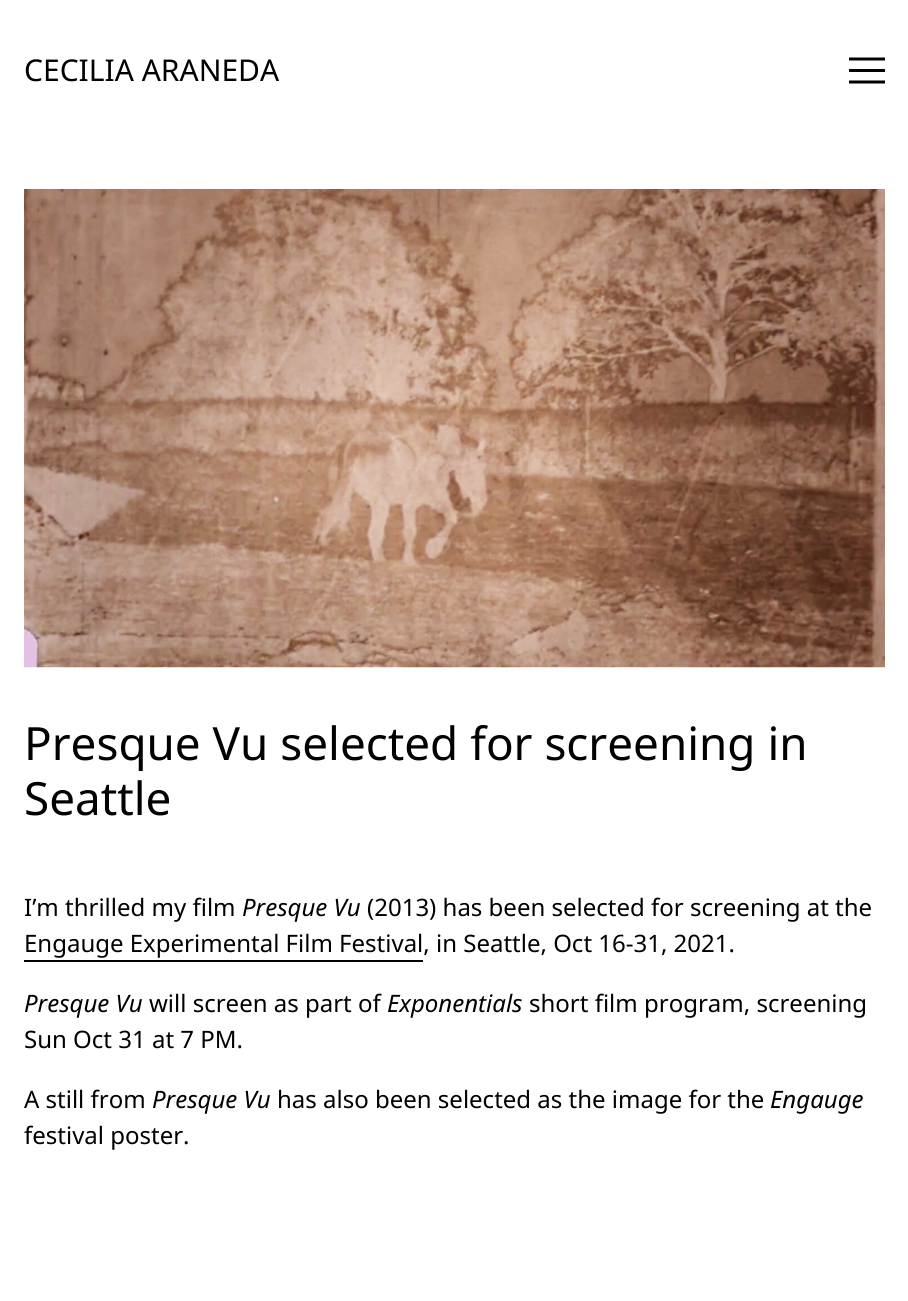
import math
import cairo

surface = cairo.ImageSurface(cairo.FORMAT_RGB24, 908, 1301)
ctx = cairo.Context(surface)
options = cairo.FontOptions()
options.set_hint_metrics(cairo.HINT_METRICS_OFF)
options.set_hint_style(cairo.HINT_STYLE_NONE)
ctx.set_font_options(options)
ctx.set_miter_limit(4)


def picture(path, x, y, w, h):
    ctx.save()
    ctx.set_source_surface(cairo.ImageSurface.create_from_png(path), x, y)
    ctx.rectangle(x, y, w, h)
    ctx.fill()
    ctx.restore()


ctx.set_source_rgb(1, 1, 1)
ctx.paint()
ctx.select_font_face("Noto Sans")
ctx.set_font_size(30)
ctx.set_source_rgb(0, 0, 0)
ctx.move_to(24, 81)
ctx.show_text("CECILIA ARANEDA")
ctx.new_path()
ctx.move_to(849, 69)
ctx.line_to(885, 69)
ctx.line_to(885, 72)
ctx.line_to(849, 72)
ctx.close_path()
ctx.move_to(849, 80.5)
ctx.line_to(885, 80.5)
ctx.line_to(885, 83.5)
ctx.line_to(849, 83.5)
ctx.close_path()
ctx.move_to(849, 57.5)
ctx.line_to(885, 57.5)
ctx.line_to(885, 60.5)
ctx.line_to(849, 60.5)
ctx.close_path()
ctx.fill()
picture("img1.png", 24, 189, 861, 479)
ctx.set_font_size(45.8)
ctx.move_to(24, 760)
ctx.show_text("Presque Vu selected for screening in")
ctx.move_to(24, 815)
ctx.show_text("Seattle")
ctx.set_font_size(24)
ctx.move_to(24, 916)
ctx.show_text("I’m thrilled my film")
ctx.select_font_face("Noto Sans", cairo.FONT_SLANT_ITALIC)
ctx.move_to(242, 916)
ctx.show_text("Presque Vu")
ctx.select_font_face("Noto Sans")
ctx.move_to(367, 916)
ctx.show_text("(2013) has been selected for screening at the")
ctx.move_to(24, 952)
ctx.show_text("Engauge Experimental Film Festival, in Seattle, Oct 16-31, 2021.")
ctx.rectangle(24, 960, 399, 2)
ctx.fill()
ctx.select_font_face("Noto Sans", cairo.FONT_SLANT_ITALIC)
ctx.move_to(24, 1012)
ctx.show_text("Presque Vu")
ctx.select_font_face("Noto Sans")
ctx.move_to(149, 1012)
ctx.show_text("will screen as part of")
ctx.select_font_face("Noto Sans", cairo.FONT_SLANT_ITALIC)
ctx.move_to(387, 1012)
ctx.show_text("Exponentials")
ctx.select_font_face("Noto Sans")
ctx.move_to(529, 1012)
ctx.show_text("short film program, screening")
ctx.move_to(24, 1048)
ctx.show_text("Sun Oct 31 at 7 PM.")
ctx.move_to(24, 1108)
ctx.show_text("A still from")
ctx.select_font_face("Noto Sans", cairo.FONT_SLANT_ITALIC)
ctx.move_to(152, 1108)
ctx.show_text("Presque Vu")
ctx.select_font_face("Noto Sans")
ctx.move_to(277, 1108)
ctx.show_text("has also been selected as the image for the")
ctx.select_font_face("Noto Sans", cairo.FONT_SLANT_ITALIC)
ctx.move_to(770, 1108)
ctx.show_text("Engauge")
ctx.select_font_face("Noto Sans")
ctx.move_to(24, 1144)
ctx.show_text("festival poster.")
surface.write_to_png("page.png")
